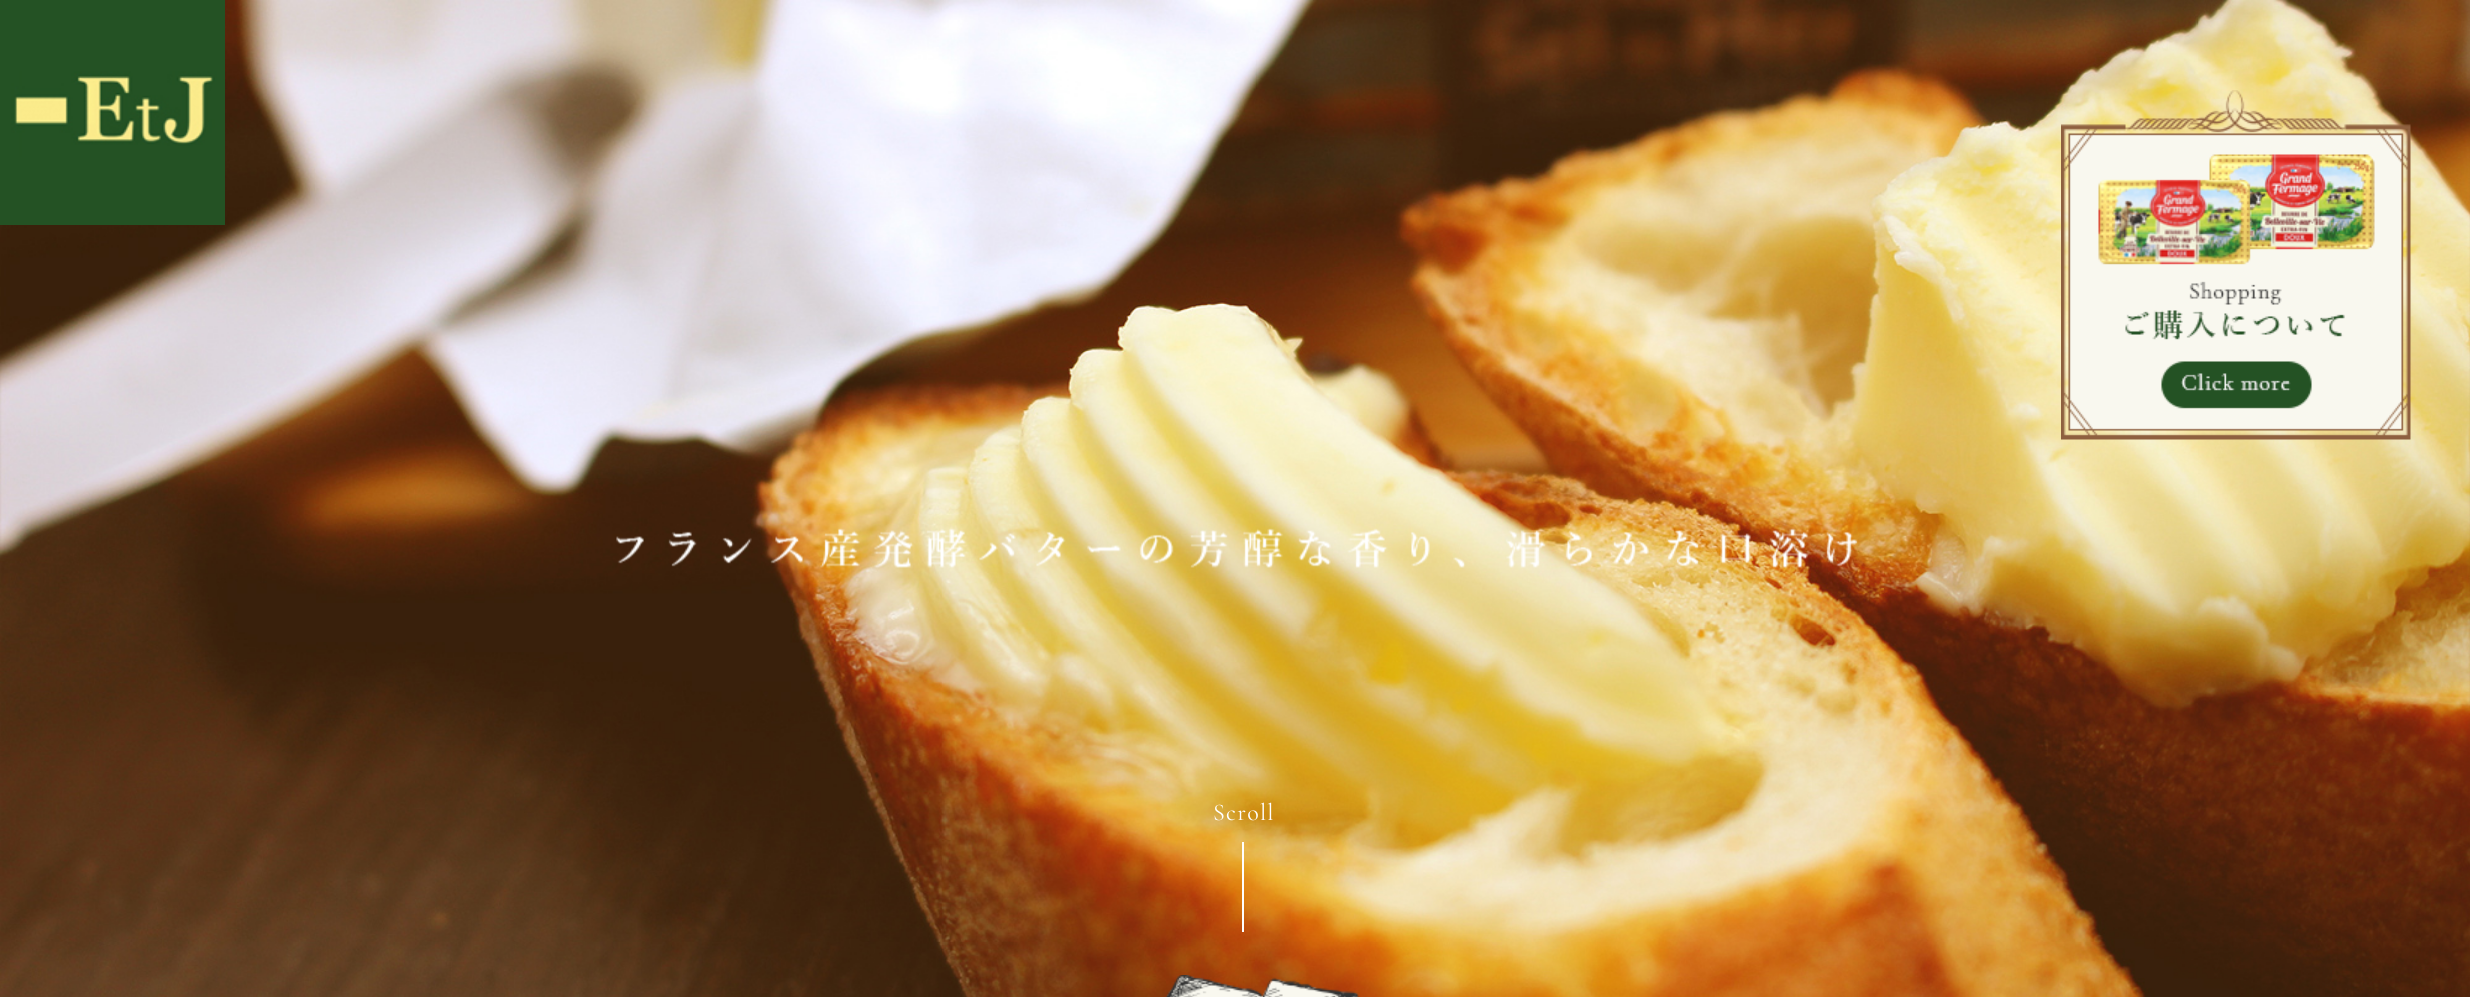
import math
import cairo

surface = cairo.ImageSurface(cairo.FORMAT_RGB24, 2470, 997)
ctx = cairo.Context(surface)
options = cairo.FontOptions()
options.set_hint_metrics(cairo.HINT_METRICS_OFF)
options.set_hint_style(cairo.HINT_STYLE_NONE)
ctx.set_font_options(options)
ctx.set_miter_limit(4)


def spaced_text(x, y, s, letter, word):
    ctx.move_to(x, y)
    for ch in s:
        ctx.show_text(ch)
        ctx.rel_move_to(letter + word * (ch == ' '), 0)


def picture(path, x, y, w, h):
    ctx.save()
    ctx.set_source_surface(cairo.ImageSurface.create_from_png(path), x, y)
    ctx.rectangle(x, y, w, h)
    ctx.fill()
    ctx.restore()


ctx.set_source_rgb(1, 1, 1)
ctx.paint()
picture("img3.png", 0, 0, 2470, 997)
picture("img1.png", 0, 0, 225, 225)
picture("img2.png", 2061, 90, 350, 350)
picture("img4.png", 616, 528, 1242, 40)
ctx.select_font_face("Cormorant Garamond")
ctx.set_font_size(24)
ctx.set_source_rgb(1, 1, 1)
spaced_text(1213, 820, "Scroll", 1.25, 0)
ctx.rectangle(1242, 842, 2, 90)
ctx.fill()
picture("img5.png", 1165, 975, 195, 22)
surface.write_to_png("page.png")
